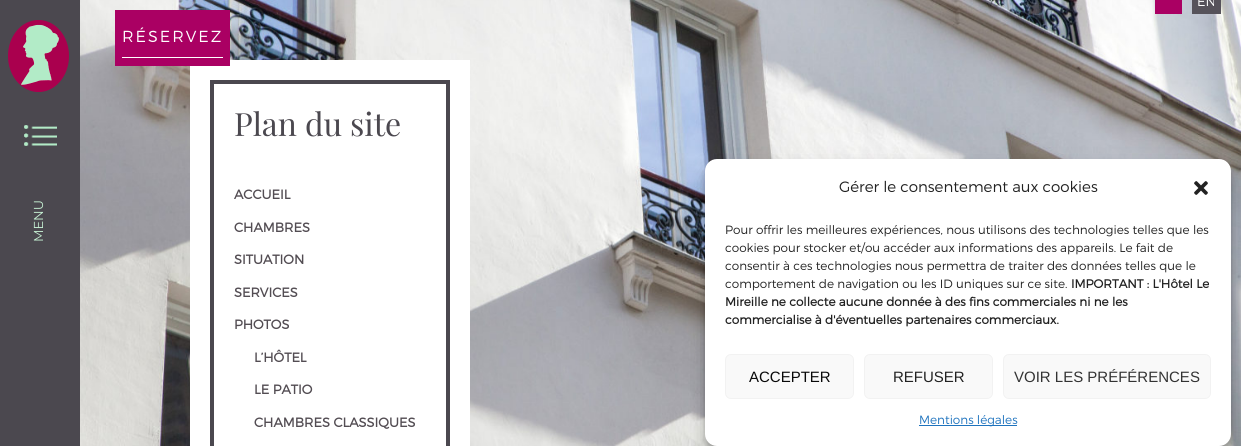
import math
import cairo

surface = cairo.ImageSurface(cairo.FORMAT_RGB24, 1241, 446)
ctx = cairo.Context(surface)
options = cairo.FontOptions()
options.set_hint_metrics(cairo.HINT_METRICS_OFF)
options.set_hint_style(cairo.HINT_STYLE_NONE)
ctx.set_font_options(options)
ctx.set_miter_limit(4)


def spaced_text(x, y, s, letter, word):
    ctx.move_to(x, y)
    for ch in s:
        ctx.show_text(ch)
        ctx.rel_move_to(letter + word * (ch == ' '), 0)


def round_rect(x, y, w, h, r):
    ctx.new_sub_path()
    for i, (u, v) in enumerate([(x + w - r, y + h - r), (x + r, y + h - r), (x + r, y + r), (x + w - r, y + r)]):
        ctx.arc(u, v, r, i * math.pi / 2, (i + 1) * math.pi / 2)
    ctx.close_path()


def shadow(x, y, w, h, r, blur, alpha):
    ctx.push_group_with_content(cairo.CONTENT_ALPHA)
    ctx.set_operator(cairo.OPERATOR_SOURCE)
    for i in range(15, -16, -2):
        e = blur * i / 6
        if min(w, h) + 2 * e > 0:
            ctx.set_source_rgba(0, 0, 0, alpha * math.erfc((i - 1) / 8.5) / 2)
            round_rect(x - e, y - e, w + 2 * e, h + 2 * e, max(0, min(r + e + blur * .6, min(w, h) / 2 + e)))
            ctx.fill()
    ctx.mask(ctx.pop_group())


def picture(path, x, y, w, h):
    ctx.save()
    ctx.set_source_surface(cairo.ImageSurface.create_from_png(path), x, y)
    ctx.rectangle(x, y, w, h)
    ctx.fill()
    ctx.restore()


ctx.set_source_rgb(1, 1, 1)
ctx.paint()
picture("img1.png", 80, 0, 1161, 446)
ctx.set_source_rgb(0.667, 0, 0.388)
ctx.rectangle(1155, 0, 27, 14)
ctx.fill()
ctx.set_source_rgb(0.337, 0.322, 0.353)
ctx.rectangle(1192, 0, 29, 14)
ctx.fill()
ctx.select_font_face("Montserrat Light")
ctx.set_font_size(13)
ctx.set_source_rgb(1, 1, 1)
ctx.move_to(1197, 6)
ctx.show_text("EN")
ctx.rectangle(190, 60, 280, 386)
ctx.fill()
ctx.set_source_rgb(0.667, 0, 0.388)
ctx.rectangle(115, 10, 115, 56)
ctx.fill()
ctx.set_source_rgb(1, 1, 1)
ctx.rectangle(122, 57, 101, 1)
ctx.fill()
ctx.set_font_size(16)
spaced_text(122, 42, "RÉSERVEZ", 2, 0)
ctx.set_source_rgb(0.294, 0.282, 0.31)
ctx.rectangle(0, 0, 80, 446)
ctx.fill()
picture("img2.png", 8, 20, 61, 72)
picture("img3.png", 24, 125, 33, 21)
ctx.select_font_face("Montserrat Thin")
ctx.set_font_size(13)
ctx.set_source_rgb(0.773, 0.937, 0.824)
ctx.save()
ctx.translate(43, 242)
ctx.rotate(-90 * math.pi / 180)
ctx.move_to(0, 0)
ctx.show_text("MENU")
ctx.restore()
ctx.rectangle(212, 82, 236, 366)
ctx.set_source_rgb(0.294, 0.282, 0.31)
ctx.set_line_width(4)
ctx.stroke()
ctx.select_font_face("Playfair Display")
ctx.set_font_size(32)
ctx.move_to(234, 136)
ctx.show_text("Plan du site")
ctx.select_font_face("Montserrat", cairo.FONT_SLANT_NORMAL, cairo.FONT_WEIGHT_BOLD)
ctx.set_font_size(13)
ctx.set_source_rgb(0.325, 0.302, 0.325)
ctx.move_to(234, 199)
ctx.show_text("ACCUEIL")
ctx.move_to(234, 232)
ctx.show_text("CHAMBRES")
ctx.move_to(234, 264)
ctx.show_text("SITUATION")
ctx.move_to(234, 297)
ctx.show_text("SERVICES")
ctx.move_to(234, 329)
ctx.show_text("PHOTOS")
ctx.move_to(254, 362)
ctx.show_text("L’HÔTEL")
ctx.move_to(254, 394)
ctx.show_text("LE PATIO")
ctx.move_to(254, 427)
ctx.show_text("CHAMBRES CLASSIQUES")
ctx.set_source_rgb(0, 0, 0)
shadow(705, 165, 526, 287, 12, 3, 0.23)
shadow(705, 169, 526, 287, 12, 10, 0.19)
ctx.set_source_rgb(1, 1, 1)
round_rect(705, 159, 526, 287, 12)
ctx.fill()
ctx.select_font_face("Montserrat Light")
ctx.set_font_size(15)
ctx.set_source_rgb(0.133, 0.133, 0.133)
ctx.move_to(839, 192)
ctx.show_text("Gérer le consentement aux cookies")
picture("img4.png", 1194, 181, 14, 14)
ctx.set_font_size(12)
ctx.move_to(725, 234)
ctx.show_text("Pour offrir les meilleures expériences, nous utilisons des technologies telles que les")
ctx.move_to(725, 252)
ctx.show_text("cookies pour stocker et/ou accéder aux informations des appareils. Le fait de")
ctx.move_to(725, 270)
ctx.show_text("consentir à ces technologies nous permettra de traiter des données telles que le")
ctx.move_to(725, 288)
ctx.show_text("comportement de navigation ou les ID uniques sur ce site.")
ctx.select_font_face("Montserrat", cairo.FONT_SLANT_NORMAL, cairo.FONT_WEIGHT_BOLD)
ctx.move_to(1071, 288)
ctx.show_text("IMPORTANT : L'Hôtel Le")
ctx.move_to(725, 306)
ctx.show_text("Mireille ne collecte aucune donnée à des fins commerciales ni ne les")
ctx.move_to(725, 324)
ctx.show_text("commercialise à d'éventuelles partenaires commerciaux.")
ctx.set_source_rgb(0.976, 0.976, 0.976)
round_rect(725.5, 354.5, 128, 44, 5.5)
ctx.fill_preserve()
ctx.set_source_rgb(0.949, 0.949, 0.949)
ctx.set_line_width(1)
ctx.stroke()
ctx.select_font_face("Liberation Sans")
ctx.set_font_size(15)
ctx.set_source_rgb(0.039, 0.039, 0.039)
ctx.move_to(749, 382)
ctx.show_text("ACCEPTER")
ctx.set_source_rgb(0.976, 0.976, 0.976)
round_rect(864.5, 354.5, 128, 44, 5.5)
ctx.fill_preserve()
ctx.set_source_rgb(0.949, 0.949, 0.949)
ctx.stroke()
ctx.set_source_rgb(0.133, 0.133, 0.133)
ctx.move_to(893, 382)
ctx.show_text("REFUSER")
ctx.set_source_rgb(0.976, 0.976, 0.976)
round_rect(1003.5, 354.5, 207, 44, 5.5)
ctx.fill_preserve()
ctx.set_source_rgb(0.949, 0.949, 0.949)
ctx.stroke()
ctx.set_source_rgb(0.2, 0.2, 0.2)
ctx.move_to(1014, 382)
ctx.show_text("VOIR LES PRÉFÉRENCES")
ctx.set_source_rgb(0.118, 0.451, 0.745)
ctx.rectangle(919, 425, 98, 1)
ctx.fill()
ctx.select_font_face("Montserrat Light")
ctx.set_font_size(12)
ctx.move_to(919, 424)
ctx.show_text("Mentions légales")
surface.write_to_png("page.png")
